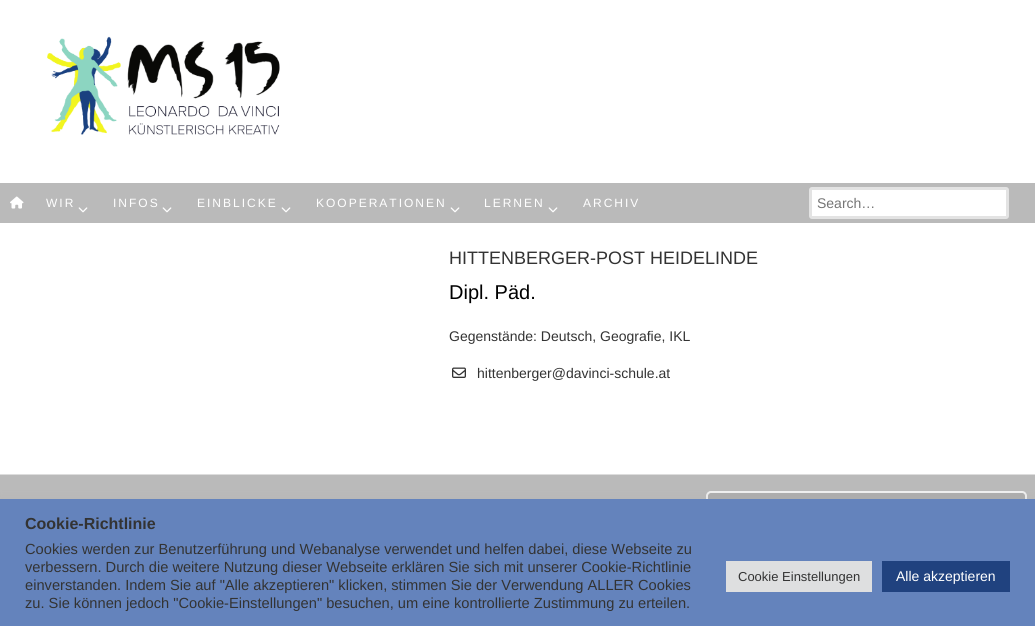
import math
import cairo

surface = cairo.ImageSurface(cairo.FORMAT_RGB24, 1035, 626)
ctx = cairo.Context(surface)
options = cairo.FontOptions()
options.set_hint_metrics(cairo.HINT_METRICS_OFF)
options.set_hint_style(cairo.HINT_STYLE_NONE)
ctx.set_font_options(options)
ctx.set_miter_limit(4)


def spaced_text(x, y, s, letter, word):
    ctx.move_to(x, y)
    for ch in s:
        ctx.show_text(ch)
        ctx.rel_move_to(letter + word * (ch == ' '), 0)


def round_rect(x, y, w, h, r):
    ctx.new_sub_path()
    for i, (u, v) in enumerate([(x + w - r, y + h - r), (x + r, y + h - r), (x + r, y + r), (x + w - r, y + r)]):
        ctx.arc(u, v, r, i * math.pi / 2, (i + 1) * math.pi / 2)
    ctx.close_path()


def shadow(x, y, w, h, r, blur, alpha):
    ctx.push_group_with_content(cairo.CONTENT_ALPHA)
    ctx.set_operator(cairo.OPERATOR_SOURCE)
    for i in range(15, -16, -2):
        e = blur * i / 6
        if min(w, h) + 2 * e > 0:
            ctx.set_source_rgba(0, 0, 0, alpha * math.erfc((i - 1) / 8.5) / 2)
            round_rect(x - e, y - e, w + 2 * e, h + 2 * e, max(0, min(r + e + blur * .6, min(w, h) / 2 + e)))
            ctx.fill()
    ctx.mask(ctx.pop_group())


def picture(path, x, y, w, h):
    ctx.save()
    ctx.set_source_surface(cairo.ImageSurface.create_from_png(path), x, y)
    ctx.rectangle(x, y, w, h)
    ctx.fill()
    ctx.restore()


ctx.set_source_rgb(1, 1, 1)
ctx.paint()
picture("img1.png", 47, 36, 233, 99)
ctx.set_source_rgb(0.729, 0.729, 0.729)
ctx.rectangle(0, 183, 1035, 40)
ctx.fill()
picture("img2.png", 10, 196, 14, 13)
ctx.select_font_face("Liberation Sans")
ctx.set_font_size(12)
ctx.set_source_rgb(1, 1, 1)
spaced_text(46, 207, "WIR", 2, 0)
picture("img3.png", 78, 207, 10, 6)
spaced_text(113, 207, "INFOS", 2, 0)
picture("img3.png", 162, 207, 10, 6)
spaced_text(197, 207, "EINBLICKE", 2, 0)
picture("img3.png", 281, 207, 10, 6)
spaced_text(316, 207, "KOOPERATIONEN", 2, 0)
picture("img3.png", 450, 207, 10, 6)
spaced_text(484, 207, "LERNEN", 2, 0)
picture("img3.png", 548, 207, 10, 6)
spaced_text(583, 207, "ARCHIV", 2, 0)
round_rect(810.5, 188.5, 197, 29, 1.5)
ctx.fill_preserve()
ctx.set_source_rgb(0.89, 0.89, 0.89)
ctx.set_line_width(3)
ctx.stroke()
ctx.set_font_size(14)
ctx.set_source_rgb(0.459, 0.459, 0.459)
ctx.move_to(817, 208)
ctx.show_text("Search…")
ctx.set_font_size(18)
ctx.set_source_rgb(0.2, 0.2, 0.2)
ctx.move_to(449, 264)
ctx.show_text("HITTENBERGER-POST HEIDELINDE")
ctx.set_font_size(20)
ctx.set_source_rgb(0, 0, 0)
ctx.move_to(449, 299)
ctx.show_text("Dipl. Päd.")
ctx.set_font_size(14)
ctx.set_source_rgb(0.2, 0.2, 0.2)
ctx.move_to(449, 341)
ctx.show_text("Gegenstände: Deutsch, Geografie, IKL")
picture("img4.png", 452, 367, 14, 11)
ctx.move_to(477, 378)
ctx.show_text("hittenberger@davinci-schule.at")
ctx.set_source_rgb(0.729, 0.729, 0.729)
ctx.rectangle(0, 475, 1035, 24)
ctx.fill()
ctx.set_source_rgb(0.867, 0.867, 0.867)
ctx.rectangle(0, 474, 1035, 1)
ctx.fill()
ctx.set_source_rgb(0.678, 0.678, 0.678)
round_rect(707, 492, 319, 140, 4)
ctx.fill_preserve()
ctx.set_source_rgb(0.945, 0.945, 0.945)
ctx.set_line_width(2)
ctx.stroke()
ctx.set_source_rgb(0.675, 0.671, 0.671)
shadow(0, 498, 1035, 127, 0, 5, 0.3)
ctx.set_source_rgb(0.392, 0.514, 0.737)
ctx.rectangle(0, 499, 1035, 127)
ctx.fill()
ctx.select_font_face("Liberation Sans", cairo.FONT_SLANT_NORMAL, cairo.FONT_WEIGHT_BOLD)
ctx.set_font_size(16)
ctx.set_source_rgb(0.2, 0.2, 0.2)
ctx.move_to(25, 529)
ctx.show_text("Cookie-Richtlinie")
ctx.select_font_face("Liberation Sans")
ctx.set_font_size(14.65)
ctx.move_to(25, 554)
ctx.show_text("Cookies werden zur Benutzerführung und Webanalyse verwendet und helfen dabei, diese Webseite zu")
ctx.move_to(25, 572)
ctx.show_text("verbessern. Durch die weitere Nutzung dieser Webseite erklären Sie sich mit unserer Cookie-Richtlinie")
ctx.move_to(25, 590)
ctx.show_text("einverstanden. Indem Sie auf \"Alle akzeptieren\" klicken, stimmen Sie der Verwendung ALLER Cookies")
ctx.move_to(25, 608)
ctx.show_text("zu. Sie können jedoch \"Cookie-Einstellungen\" besuchen, um eine kontrollierte Zustimmung zu erteilen.")
ctx.set_source_rgb(0.871, 0.875, 0.878)
ctx.rectangle(726, 561, 146, 31)
ctx.fill()
ctx.set_font_size(13)
ctx.set_source_rgb(0.2, 0.2, 0.2)
ctx.move_to(738, 581)
ctx.show_text("Cookie Einstellungen")
ctx.set_source_rgb(0.125, 0.259, 0.498)
ctx.rectangle(882, 561, 128, 31)
ctx.fill()
ctx.set_font_size(14)
ctx.set_source_rgb(1, 1, 1)
ctx.move_to(896, 581)
ctx.show_text("Alle akzeptieren")
surface.write_to_png("page.png")
